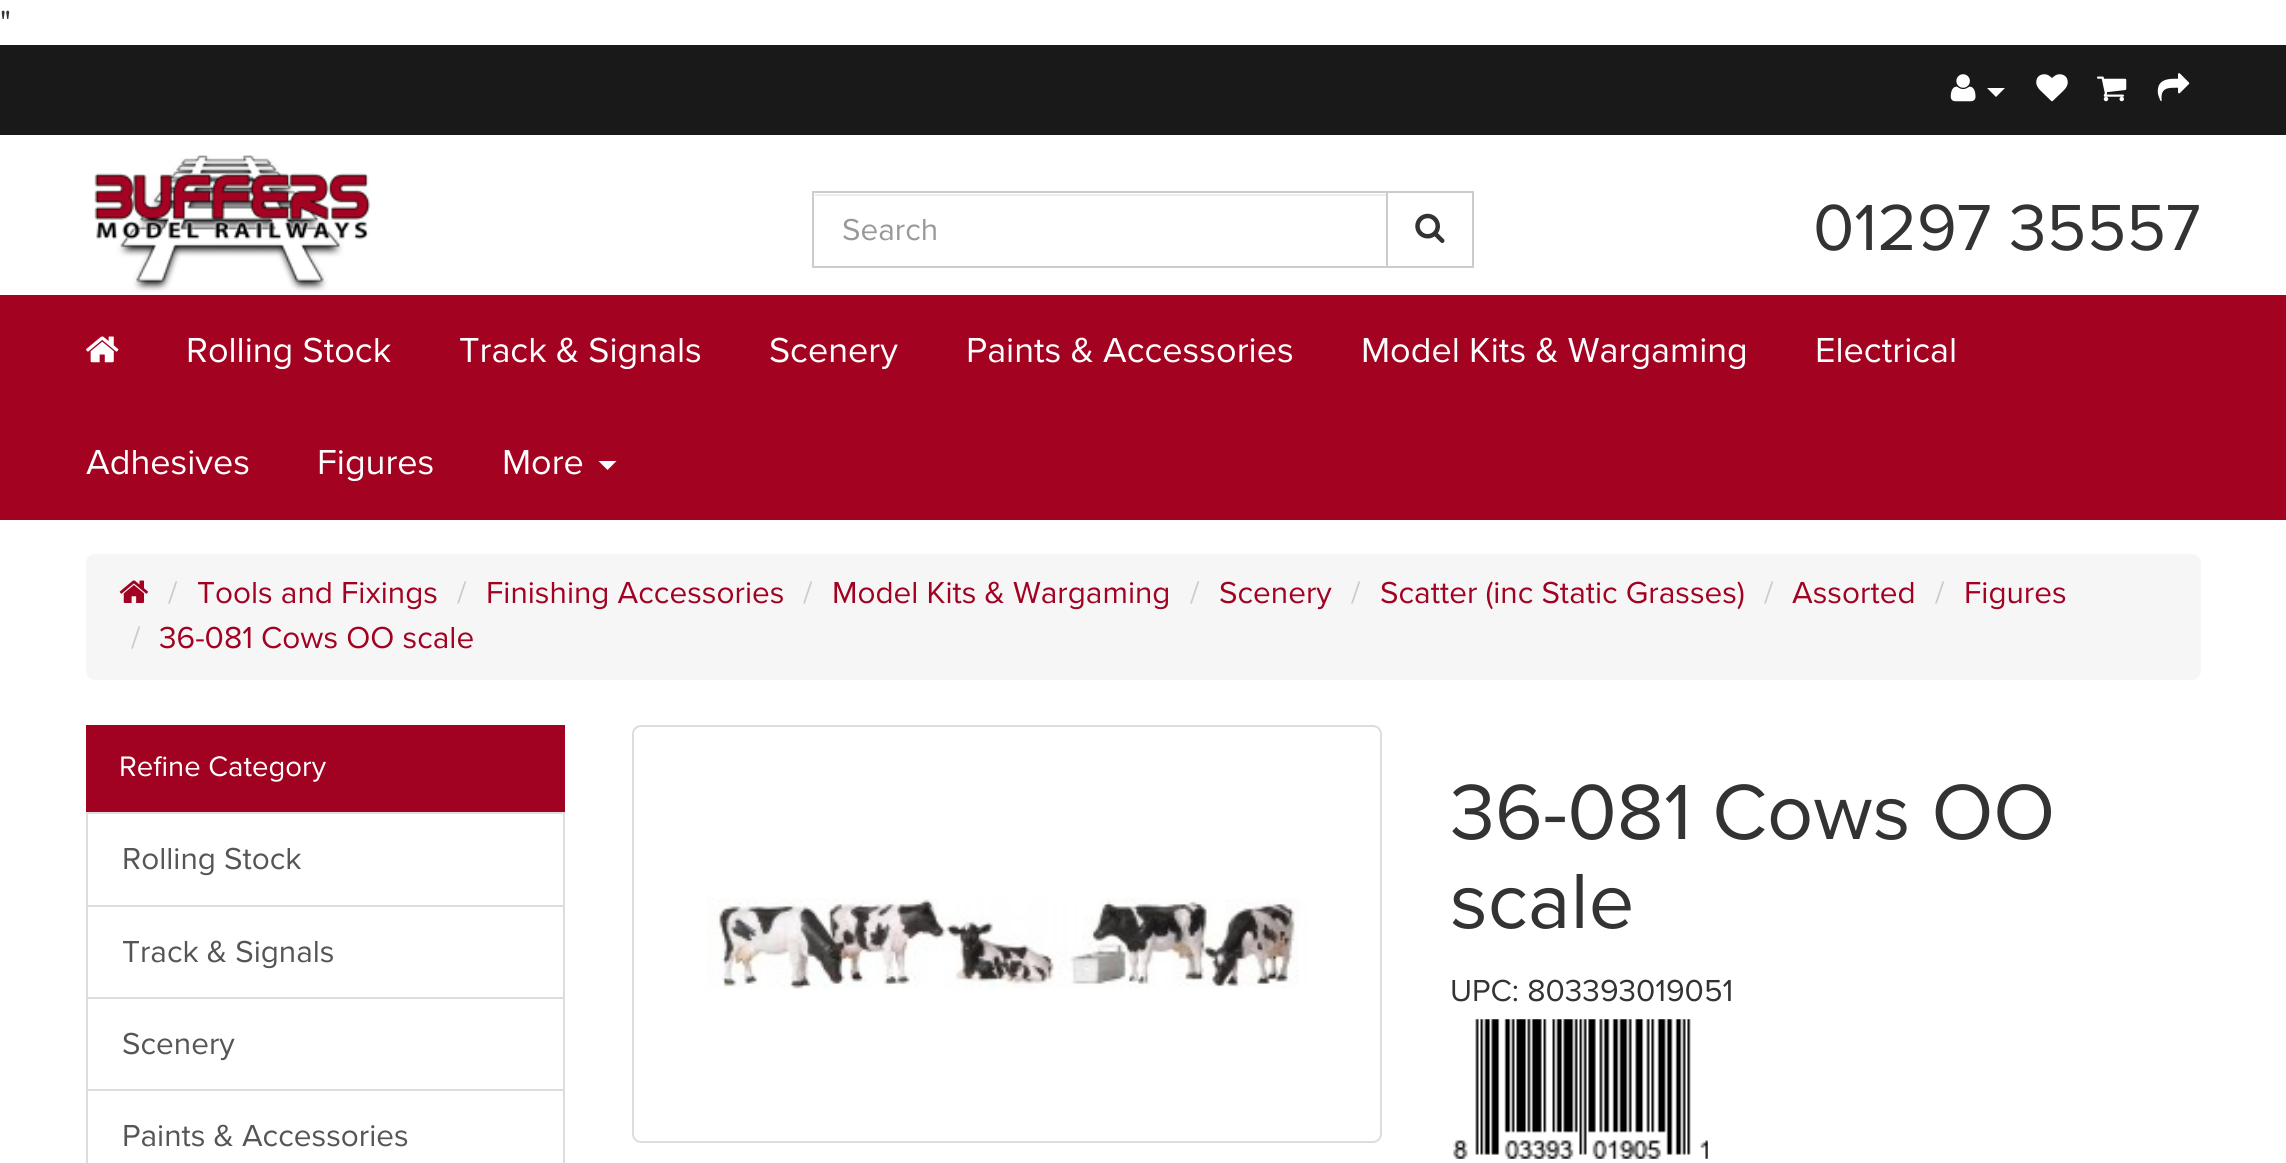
import math
import cairo

surface = cairo.ImageSurface(cairo.FORMAT_RGB24, 2286, 1163)
ctx = cairo.Context(surface)
options = cairo.FontOptions()
options.set_hint_metrics(cairo.HINT_METRICS_OFF)
options.set_hint_style(cairo.HINT_STYLE_NONE)
ctx.set_font_options(options)
ctx.set_miter_limit(4)


def round_rect(x, y, w, h, r):
    ctx.new_sub_path()
    for i, (u, v) in enumerate([(x + w - r, y + h - r), (x + r, y + h - r), (x + r, y + r), (x + w - r, y + r)]):
        ctx.arc(u, v, r, i * math.pi / 2, (i + 1) * math.pi / 2)
    ctx.close_path()


def picture(path, x, y, w, h):
    ctx.save()
    ctx.set_source_surface(cairo.ImageSurface.create_from_png(path), x, y)
    ctx.rectangle(x, y, w, h)
    ctx.fill()
    ctx.restore()


ctx.set_source_rgb(1, 1, 1)
ctx.paint()
ctx.select_font_face("Proxima Nova")
ctx.set_font_size(31.5)
ctx.set_source_rgb(0.2, 0.2, 0.2)
ctx.move_to(0, 32)
ctx.show_text("\"")
ctx.set_source_rgb(0.098, 0.098, 0.098)
ctx.rectangle(0, 45, 2286, 90)
ctx.fill()
picture("img1.png", 1950, 74, 26, 28)
ctx.set_source_rgb(1, 1, 1)
ctx.new_path()
ctx.move_to(1987, 88)
ctx.line_to(2005, 88)
ctx.line_to(1996, 97)
ctx.close_path()
ctx.fill()
picture("img2.png", 2036, 74, 32, 28)
picture("img3.png", 2097, 76, 30, 26)
picture("img4.png", 2157, 73, 33, 29)
picture("img5.png", 94, 155, 277, 137)
ctx.set_source_rgb(0.925, 0.925, 0.925)
ctx.rectangle(815, 194, 571, 2)
ctx.fill()
ctx.rectangle(813, 192, 574, 75)
ctx.set_source_rgb(0.8, 0.8, 0.8)
ctx.stroke()
ctx.set_source_rgb(0.6, 0.6, 0.6)
ctx.move_to(842, 240)
ctx.show_text("Search")
ctx.rectangle(1387, 192, 86, 75)
ctx.set_source_rgb(0.8, 0.8, 0.8)
ctx.stroke()
picture("img6.png", 1415, 213, 30, 30)
ctx.set_font_size(67.5)
ctx.set_source_rgb(0.2, 0.2, 0.2)
ctx.move_to(1813, 250)
ctx.show_text("01297 35557")
ctx.set_source_rgb(0.639, 0.008, 0.129)
ctx.rectangle(0, 295, 2286, 225)
ctx.fill()
picture("img7.png", 86, 336, 33, 27)
ctx.set_font_size(36)
ctx.set_source_rgb(1, 1, 1)
ctx.move_to(186, 362)
ctx.show_text("Rolling Stock")
ctx.move_to(459, 362)
ctx.show_text("Track & Signals")
ctx.move_to(769, 362)
ctx.show_text("Scenery")
ctx.move_to(966, 362)
ctx.show_text("Paints & Accessories")
ctx.move_to(1361, 362)
ctx.show_text("Model Kits & Wargaming")
ctx.move_to(1815, 362)
ctx.show_text("Electrical")
ctx.move_to(86, 474)
ctx.show_text("Adhesives")
ctx.move_to(317, 474)
ctx.show_text("Figures")
ctx.move_to(502, 474)
ctx.show_text("More")
ctx.new_path()
ctx.move_to(598.5, 461)
ctx.line_to(616.5, 461)
ctx.line_to(607.5, 470)
ctx.close_path()
ctx.fill()
ctx.set_source_rgb(0.961, 0.961, 0.961)
round_rect(86, 554, 2115, 126, 9)
ctx.fill()
picture("img8.png", 119, 580, 29, 23)
ctx.set_font_size(31.5)
ctx.set_source_rgb(0.8, 0.8, 0.8)
ctx.move_to(168, 603)
ctx.show_text("/")
ctx.set_source_rgb(0.635, 0.008, 0.133)
ctx.move_to(197, 603)
ctx.show_text("Tools and Fixings")
ctx.set_source_rgb(0.8, 0.8, 0.8)
ctx.move_to(457, 603)
ctx.show_text("/")
ctx.set_source_rgb(0.635, 0.008, 0.133)
ctx.move_to(486, 603)
ctx.show_text("Finishing Accessories")
ctx.set_source_rgb(0.8, 0.8, 0.8)
ctx.move_to(803, 603)
ctx.show_text("/")
ctx.set_source_rgb(0.635, 0.008, 0.133)
ctx.move_to(832, 603)
ctx.show_text("Model Kits & Wargaming")
ctx.set_source_rgb(0.8, 0.8, 0.8)
ctx.move_to(1190, 603)
ctx.show_text("/")
ctx.set_source_rgb(0.635, 0.008, 0.133)
ctx.move_to(1219, 603)
ctx.show_text("Scenery")
ctx.set_source_rgb(0.8, 0.8, 0.8)
ctx.move_to(1351, 603)
ctx.show_text("/")
ctx.set_source_rgb(0.635, 0.008, 0.133)
ctx.move_to(1380, 603)
ctx.show_text("Scatter (inc Static Grasses)")
ctx.set_source_rgb(0.8, 0.8, 0.8)
ctx.move_to(1764, 603)
ctx.show_text("/")
ctx.set_source_rgb(0.635, 0.008, 0.133)
ctx.move_to(1792, 603)
ctx.show_text("Assorted")
ctx.set_source_rgb(0.8, 0.8, 0.8)
ctx.move_to(1935, 603)
ctx.show_text("/")
ctx.set_source_rgb(0.635, 0.008, 0.133)
ctx.move_to(1964, 603)
ctx.show_text("Figures")
ctx.set_source_rgb(0.8, 0.8, 0.8)
ctx.move_to(131, 648)
ctx.show_text("/")
ctx.set_source_rgb(0.635, 0.008, 0.133)
ctx.move_to(159, 648)
ctx.show_text("36-081 Cows OO scale")
ctx.rectangle(86, 725, 479, 87)
ctx.fill()
ctx.set_font_size(29.25)
ctx.set_source_rgb(1, 1, 1)
ctx.move_to(119, 776)
ctx.show_text("Refine Category")
ctx.rectangle(87, 813, 477, 93)
ctx.set_source_rgb(0.867, 0.867, 0.867)
ctx.stroke()
ctx.set_font_size(31.5)
ctx.set_source_rgb(0.333, 0.333, 0.333)
ctx.move_to(122, 869)
ctx.show_text("Rolling Stock")
ctx.rectangle(87, 906, 477, 92)
ctx.set_source_rgb(0.867, 0.867, 0.867)
ctx.stroke()
ctx.set_source_rgb(0.333, 0.333, 0.333)
ctx.move_to(122, 962)
ctx.show_text("Track & Signals")
ctx.rectangle(87, 998, 477, 92)
ctx.set_source_rgb(0.867, 0.867, 0.867)
ctx.stroke()
ctx.set_source_rgb(0.333, 0.333, 0.333)
ctx.move_to(122, 1054)
ctx.show_text("Scenery")
ctx.rectangle(87, 1090, 477, 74)
ctx.set_source_rgb(0.867, 0.867, 0.867)
ctx.stroke()
ctx.set_source_rgb(0.333, 0.333, 0.333)
ctx.move_to(122, 1146)
ctx.show_text("Paints & Accessories")
round_rect(633, 726, 748, 416, 8)
ctx.set_source_rgb(0.867, 0.867, 0.867)
ctx.stroke()
picture("img9.png", 707, 898, 600, 91)
ctx.set_font_size(81)
ctx.set_source_rgb(0.2, 0.2, 0.2)
ctx.move_to(1450, 839)
ctx.show_text("36-081 Cows OO")
ctx.move_to(1450, 928)
ctx.show_text("scale")
ctx.set_font_size(31.5)
ctx.move_to(1450, 1001)
ctx.show_text("UPC: 803393019051")
picture("img10.png", 1453, 1019, 255, 140)
surface.write_to_png("page.png")
